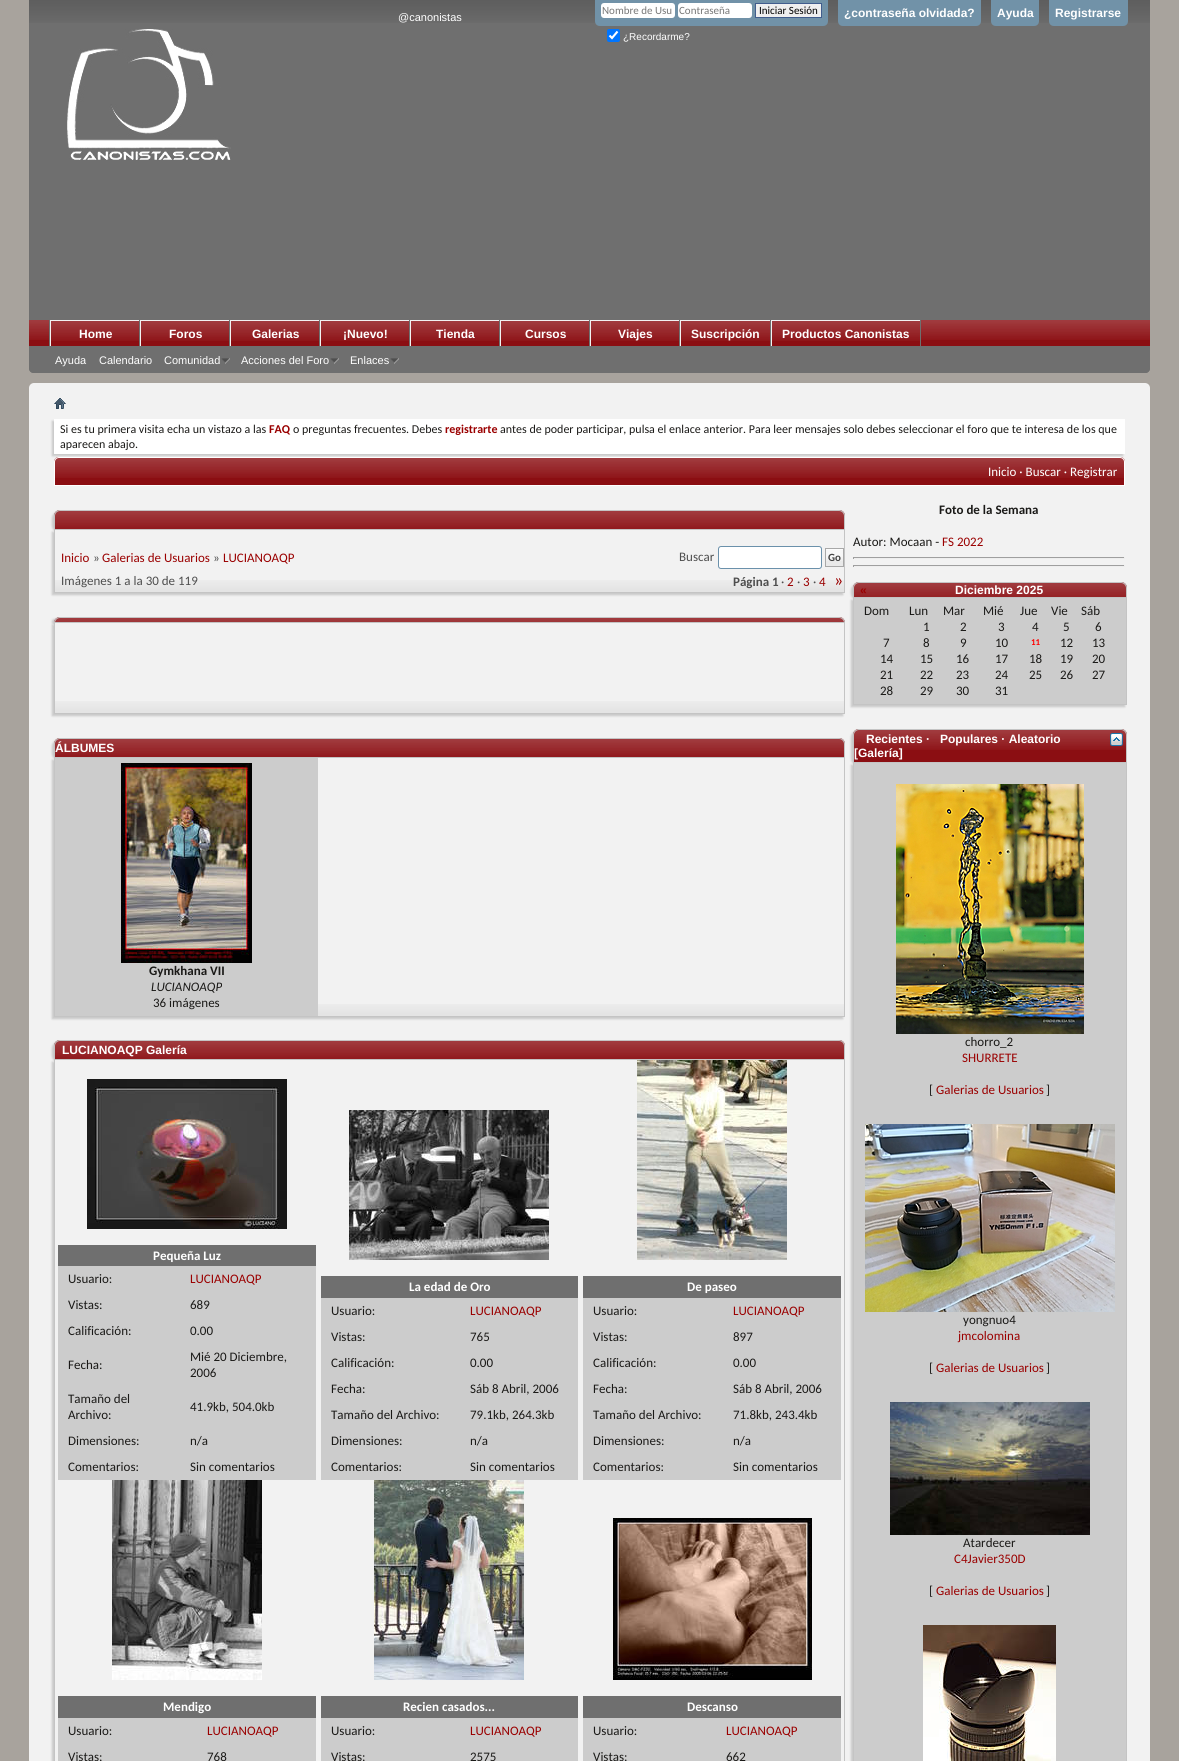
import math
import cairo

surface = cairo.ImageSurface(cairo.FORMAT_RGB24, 1179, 1761)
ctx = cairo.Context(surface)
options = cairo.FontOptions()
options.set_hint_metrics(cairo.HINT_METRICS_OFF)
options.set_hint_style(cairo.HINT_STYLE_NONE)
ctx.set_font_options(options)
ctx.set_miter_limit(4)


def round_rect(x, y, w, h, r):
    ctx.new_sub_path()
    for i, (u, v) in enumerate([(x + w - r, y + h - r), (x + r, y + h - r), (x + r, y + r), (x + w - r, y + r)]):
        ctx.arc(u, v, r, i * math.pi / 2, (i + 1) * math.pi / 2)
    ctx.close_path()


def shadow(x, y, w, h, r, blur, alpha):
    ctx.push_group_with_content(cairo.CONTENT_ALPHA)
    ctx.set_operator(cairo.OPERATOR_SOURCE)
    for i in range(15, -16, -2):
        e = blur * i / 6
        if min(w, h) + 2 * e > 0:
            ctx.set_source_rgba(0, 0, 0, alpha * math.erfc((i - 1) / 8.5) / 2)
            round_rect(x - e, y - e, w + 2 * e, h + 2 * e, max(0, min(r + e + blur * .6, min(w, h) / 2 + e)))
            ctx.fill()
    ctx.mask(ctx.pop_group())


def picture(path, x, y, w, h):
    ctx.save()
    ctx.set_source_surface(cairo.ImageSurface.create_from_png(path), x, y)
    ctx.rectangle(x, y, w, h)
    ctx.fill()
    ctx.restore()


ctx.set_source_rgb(0.659, 0.639, 0.616)
ctx.paint()
ctx.set_source_rgb(0.435, 0.435, 0.435)
ctx.new_path()
ctx.move_to(29, 0)
ctx.line_to(1150, 0)
ctx.line_to(1150, 368)
ctx.curve_to(1150, 371, 1148, 373, 1145, 373)
ctx.line_to(34, 373)
ctx.curve_to(31, 373, 29, 371, 29, 368)
ctx.close_path()
ctx.fill()
picture("img1.png", 29, 0, 1121, 23)
ctx.select_font_face("Liberation Sans")
ctx.set_font_size(11)
ctx.set_source_rgb(1, 1, 1)
ctx.move_to(398, 21)
ctx.show_text("@canonistas")
ctx.set_source_rgb(0.443, 0.573, 0.659)
ctx.new_path()
ctx.move_to(595, 0)
ctx.line_to(828, 0)
ctx.line_to(828, 21)
ctx.curve_to(828, 24, 826, 26, 823, 26)
ctx.line_to(600, 26)
ctx.curve_to(597, 26, 595, 24, 595, 21)
ctx.close_path()
ctx.fill()
ctx.set_source_rgb(1, 1, 1)
round_rect(601, 3, 74, 15, 3)
ctx.fill()
ctx.select_font_face("Carlito")
ctx.set_source_rgb(0.467, 0.467, 0.467)
ctx.move_to(602, 14)
ctx.show_text("Nombre de Usu")
ctx.set_source_rgb(1, 1, 1)
round_rect(678, 3, 74, 15, 3)
ctx.fill()
ctx.set_source_rgb(0.467, 0.467, 0.467)
ctx.move_to(679, 14)
ctx.show_text("Contraseña")
ctx.set_source_rgb(0.937, 0.937, 0.937)
ctx.rectangle(755.5, 3.5, 66, 14)
ctx.fill_preserve()
ctx.set_source_rgb(0.255, 0.365, 0.553)
ctx.set_line_width(1)
ctx.stroke()
ctx.set_source_rgb(0, 0, 0)
ctx.move_to(759, 14)
ctx.show_text("Iniciar Sesión")
ctx.set_source_rgb(0, 0.459, 1)
round_rect(607, 29, 13, 13, 2)
ctx.fill()
ctx.new_path()
ctx.move_to(609.5, 35.5)
ctx.line_to(612, 38)
ctx.line_to(617.5, 31.5)
ctx.set_source_rgb(1, 1, 1)
ctx.set_line_width(2.1)
ctx.stroke()
ctx.select_font_face("Liberation Sans")
ctx.set_font_size(10)
ctx.move_to(623, 40)
ctx.show_text("¿Recordarme?")
ctx.set_source_rgb(0.443, 0.573, 0.659)
ctx.new_path()
ctx.move_to(838, 0)
ctx.line_to(981, 0)
ctx.line_to(981, 21)
ctx.curve_to(981, 24, 979, 26, 976, 26)
ctx.line_to(843, 26)
ctx.curve_to(840, 26, 838, 24, 838, 21)
ctx.close_path()
ctx.fill()
ctx.select_font_face("Liberation Sans", cairo.FONT_SLANT_NORMAL, cairo.FONT_WEIGHT_BOLD)
ctx.set_font_size(12)
ctx.set_source_rgb(1, 1, 1)
ctx.move_to(844, 17)
ctx.show_text("¿contraseña olvidada?")
ctx.set_source_rgb(0.443, 0.573, 0.659)
ctx.new_path()
ctx.move_to(991, 0)
ctx.line_to(1039, 0)
ctx.line_to(1039, 21)
ctx.curve_to(1039, 24, 1037, 26, 1034, 26)
ctx.line_to(996, 26)
ctx.curve_to(993, 26, 991, 24, 991, 21)
ctx.close_path()
ctx.fill()
ctx.set_source_rgb(1, 1, 1)
ctx.move_to(997, 17)
ctx.show_text("Ayuda")
ctx.set_source_rgb(0.443, 0.573, 0.659)
ctx.new_path()
ctx.move_to(1049, 0)
ctx.line_to(1128, 0)
ctx.line_to(1128, 21)
ctx.curve_to(1128, 24, 1126, 26, 1123, 26)
ctx.line_to(1054, 26)
ctx.curve_to(1051, 26, 1049, 24, 1049, 21)
ctx.close_path()
ctx.fill()
ctx.set_source_rgb(1, 1, 1)
ctx.move_to(1055, 17)
ctx.show_text("Registrarse")
picture("img2.png", 67, 29, 164, 131)
ctx.set_source_rgb(0.435, 0.435, 0.435)
ctx.new_path()
ctx.move_to(29, 320)
ctx.line_to(1150, 320)
ctx.line_to(1150, 368)
ctx.curve_to(1150, 371, 1148, 373, 1145, 373)
ctx.line_to(34, 373)
ctx.curve_to(31, 373, 29, 371, 29, 368)
ctx.close_path()
ctx.fill()
ctx.set_source_rgb(0.545, 0.055, 0.071)
ctx.rectangle(29, 320, 1121, 26)
ctx.fill()
picture("img3.png", 29, 320, 1121, 20)
ctx.set_source_rgb(0.435, 0.435, 0.435)
ctx.rectangle(229, 320, 1, 27)
ctx.fill()
ctx.set_source_rgb(0.545, 0.055, 0.071)
ctx.rectangle(141, 321, 88, 19)
ctx.fill()
picture("img4.png", 141, 321, 88, 20)
ctx.set_source_rgb(0.949, 0.949, 0.949)
ctx.rectangle(140, 320, 89, 1)
ctx.fill()
ctx.rectangle(140, 320, 1, 27)
ctx.fill()
ctx.set_source_rgb(1, 1, 1)
ctx.move_to(169, 338)
ctx.show_text("Foros")
ctx.set_source_rgb(0.435, 0.435, 0.435)
ctx.rectangle(139, 320, 1, 27)
ctx.fill()
ctx.set_source_rgb(0.949, 0.949, 0.949)
ctx.rectangle(50, 320, 89, 1)
ctx.fill()
ctx.rectangle(50, 320, 1, 27)
ctx.fill()
ctx.set_source_rgb(0.435, 0.435, 0.435)
ctx.rectangle(319, 320, 1, 27)
ctx.fill()
ctx.set_source_rgb(0.949, 0.949, 0.949)
ctx.rectangle(230, 320, 89, 1)
ctx.fill()
ctx.rectangle(230, 320, 1, 27)
ctx.fill()
ctx.set_source_rgb(0.435, 0.435, 0.435)
ctx.rectangle(409, 320, 1, 27)
ctx.fill()
ctx.set_source_rgb(0.949, 0.949, 0.949)
ctx.rectangle(320, 320, 89, 1)
ctx.fill()
ctx.rectangle(320, 320, 1, 27)
ctx.fill()
ctx.set_source_rgb(0.435, 0.435, 0.435)
ctx.rectangle(499, 320, 1, 27)
ctx.fill()
ctx.set_source_rgb(0.949, 0.949, 0.949)
ctx.rectangle(410, 320, 89, 1)
ctx.fill()
ctx.rectangle(410, 320, 1, 27)
ctx.fill()
ctx.set_source_rgb(0.435, 0.435, 0.435)
ctx.rectangle(589, 320, 1, 27)
ctx.fill()
ctx.set_source_rgb(0.949, 0.949, 0.949)
ctx.rectangle(500, 320, 89, 1)
ctx.fill()
ctx.rectangle(500, 320, 1, 27)
ctx.fill()
ctx.set_source_rgb(0.435, 0.435, 0.435)
ctx.rectangle(679, 320, 1, 27)
ctx.fill()
ctx.set_source_rgb(0.949, 0.949, 0.949)
ctx.rectangle(590, 320, 89, 1)
ctx.fill()
ctx.rectangle(590, 320, 1, 27)
ctx.fill()
ctx.set_source_rgb(0.435, 0.435, 0.435)
ctx.rectangle(770, 320, 1, 27)
ctx.fill()
ctx.set_source_rgb(0.949, 0.949, 0.949)
ctx.rectangle(680, 320, 90, 1)
ctx.fill()
ctx.rectangle(680, 320, 1, 27)
ctx.fill()
ctx.rectangle(771, 320, 149, 1)
ctx.fill()
ctx.rectangle(771, 320, 1, 27)
ctx.fill()
ctx.set_source_rgb(0.435, 0.435, 0.435)
ctx.rectangle(50, 346, 722, 1)
ctx.fill()
ctx.select_font_face("Liberation Sans")
ctx.set_font_size(11)
ctx.set_source_rgb(1, 1, 1)
ctx.move_to(55, 364)
ctx.show_text("Ayuda")
ctx.move_to(99, 364)
ctx.show_text("Calendario")
ctx.move_to(164, 364)
ctx.show_text("Comunidad")
picture("img5.png", 221, 358, 9, 6)
ctx.move_to(241, 364)
ctx.show_text("Acciones del Foro")
picture("img5.png", 330, 358, 9, 6)
ctx.move_to(350, 364)
ctx.show_text("Enlaces")
picture("img5.png", 390, 358, 9, 6)
ctx.set_source_rgb(0.435, 0.435, 0.435)
ctx.rectangle(49, 320, 1, 27)
ctx.fill()
ctx.set_source_rgb(0.545, 0.055, 0.071)
ctx.rectangle(51, 321, 88, 19)
ctx.fill()
picture("img4.png", 51, 321, 88, 20)
ctx.select_font_face("Liberation Sans", cairo.FONT_SLANT_NORMAL, cairo.FONT_WEIGHT_BOLD)
ctx.set_font_size(12)
ctx.set_source_rgb(1, 1, 1)
ctx.move_to(79, 338)
ctx.show_text("Home")
ctx.set_source_rgb(0.545, 0.055, 0.071)
ctx.rectangle(231, 321, 88, 19)
ctx.fill()
picture("img4.png", 231, 321, 88, 20)
ctx.set_source_rgb(1, 1, 1)
ctx.move_to(252, 338)
ctx.show_text("Galerias")
ctx.set_source_rgb(0.545, 0.055, 0.071)
ctx.rectangle(321, 321, 88, 19)
ctx.fill()
picture("img4.png", 321, 321, 88, 20)
ctx.set_source_rgb(1, 1, 1)
ctx.move_to(343, 338)
ctx.show_text("¡Nuevo!")
ctx.set_source_rgb(0.545, 0.055, 0.071)
ctx.rectangle(411, 321, 88, 19)
ctx.fill()
picture("img4.png", 411, 321, 88, 20)
ctx.set_source_rgb(1, 1, 1)
ctx.move_to(436, 338)
ctx.show_text("Tienda")
ctx.set_source_rgb(0.545, 0.055, 0.071)
ctx.rectangle(501, 321, 88, 19)
ctx.fill()
picture("img4.png", 501, 321, 88, 20)
ctx.set_source_rgb(1, 1, 1)
ctx.move_to(525, 338)
ctx.show_text("Cursos")
ctx.set_source_rgb(0.545, 0.055, 0.071)
ctx.rectangle(591, 321, 88, 19)
ctx.fill()
picture("img4.png", 591, 321, 88, 20)
ctx.set_source_rgb(1, 1, 1)
ctx.move_to(618, 338)
ctx.show_text("Viajes")
ctx.set_source_rgb(0.545, 0.055, 0.071)
ctx.rectangle(681, 321, 89, 19)
ctx.fill()
picture("img6.png", 681, 321, 89, 20)
ctx.set_source_rgb(1, 1, 1)
ctx.move_to(691, 338)
ctx.show_text("Suscripción")
ctx.set_source_rgb(0.435, 0.435, 0.435)
ctx.rectangle(920, 320, 1, 27)
ctx.fill()
ctx.set_source_rgb(0.545, 0.055, 0.071)
ctx.rectangle(772, 321, 148, 19)
ctx.fill()
picture("img7.png", 772, 321, 148, 20)
ctx.set_source_rgb(1, 1, 1)
ctx.move_to(782, 338)
ctx.show_text("Productos Canonistas")
ctx.set_source_rgb(0.949, 0.949, 0.949)
round_rect(29, 383, 1121, 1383, 5)
ctx.fill()
picture("img8.png", 54, 398, 12, 11)
ctx.set_source_rgb(0.784, 0.784, 0.784)
shadow(52, 421, 1071, 35, 0, 1, 1)
ctx.set_source_rgb(1, 1, 1)
ctx.rectangle(54, 419, 1071, 35)
ctx.fill()
ctx.select_font_face("Carlito")
ctx.set_source_rgb(0.102, 0.098, 0.09)
ctx.move_to(60, 433)
ctx.show_text("Si es tu primera visita echa un vistazo a las")
ctx.select_font_face("Carlito", cairo.FONT_SLANT_NORMAL, cairo.FONT_WEIGHT_BOLD)
ctx.set_source_rgb(0.604, 0, 0)
ctx.move_to(269, 433)
ctx.show_text("FAQ")
ctx.select_font_face("Carlito")
ctx.set_source_rgb(0.102, 0.098, 0.09)
ctx.move_to(293, 433)
ctx.show_text("o preguntas frecuentes. Debes")
ctx.select_font_face("Carlito", cairo.FONT_SLANT_NORMAL, cairo.FONT_WEIGHT_BOLD)
ctx.set_source_rgb(0.604, 0, 0)
ctx.move_to(445, 433)
ctx.show_text("registrarte")
ctx.select_font_face("Carlito")
ctx.set_source_rgb(0.102, 0.098, 0.09)
ctx.move_to(500, 433)
ctx.show_text("antes de poder participar, pulsa el enlace anterior. Para leer mensajes solo debes seleccionar el foro que te interesa de los que")
ctx.move_to(60, 448)
ctx.show_text("aparecen abajo.")
ctx.set_source_rgb(0.545, 0.055, 0.071)
ctx.new_path()
ctx.move_to(59, 457)
ctx.line_to(1120, 457)
ctx.curve_to(1123, 457, 1125, 459, 1125, 462)
ctx.line_to(1125, 486)
ctx.line_to(54, 486)
ctx.line_to(54, 462)
ctx.curve_to(54, 459, 56, 457, 59, 457)
ctx.close_path()
ctx.fill()
picture("img9.png", 54, 458, 1071, 20)
ctx.new_path()
ctx.move_to(59, 457.5)
ctx.line_to(1120, 457.5)
ctx.curve_to(1122.5, 457.5, 1124.5, 459.5, 1124.5, 462)
ctx.line_to(1124.5, 485.5)
ctx.line_to(54.5, 485.5)
ctx.line_to(54.5, 462)
ctx.curve_to(54.5, 459.5, 56.5, 457.5, 59, 457.5)
ctx.close_path()
ctx.set_source_rgb(1, 1, 1)
ctx.set_line_width(1)
ctx.stroke()
ctx.set_font_size(13)
ctx.move_to(988, 476)
ctx.show_text("Inicio · Buscar · Registrar")
ctx.set_source_rgb(0.784, 0.784, 0.784)
shadow(52, 512, 791, 20, 6, 1, 1)
ctx.set_source_rgb(0.545, 0.055, 0.071)
ctx.new_path()
ctx.move_to(60, 510)
ctx.line_to(839, 510)
ctx.curve_to(842.5, 510, 845, 512.5, 845, 516)
ctx.line_to(845, 530)
ctx.line_to(54, 530)
ctx.line_to(54, 516)
ctx.curve_to(54, 512.5, 56.5, 510, 60, 510)
ctx.close_path()
ctx.fill()
picture("img10.png", 54, 511, 791, 18)
ctx.new_path()
ctx.move_to(60, 510.5)
ctx.line_to(839, 510.5)
ctx.curve_to(842, 510.5, 844.5, 513, 844.5, 516)
ctx.line_to(844.5, 529.5)
ctx.line_to(54.5, 529.5)
ctx.line_to(54.5, 516)
ctx.curve_to(54.5, 513, 57, 510.5, 60, 510.5)
ctx.close_path()
ctx.set_source_rgb(0.769, 0.769, 0.769)
ctx.stroke()
ctx.set_source_rgb(0.784, 0.784, 0.784)
shadow(52, 532, 791, 63, 0, 1, 1)
ctx.set_source_rgb(0.949, 0.949, 0.949)
ctx.rectangle(55, 530, 789, 62)
ctx.fill()
picture("img11.png", 55, 580, 789, 12)
ctx.set_source_rgb(0.769, 0.769, 0.769)
ctx.rectangle(844, 530, 1, 63)
ctx.fill()
ctx.rectangle(54, 592, 791, 1)
ctx.fill()
ctx.rectangle(54, 530, 1, 63)
ctx.fill()
ctx.set_source_rgb(0.604, 0, 0)
ctx.move_to(61, 562)
ctx.show_text("Inicio")
ctx.set_source_rgb(0.306, 0.306, 0.306)
ctx.move_to(93, 562)
ctx.show_text("»")
ctx.set_source_rgb(0.604, 0, 0)
ctx.move_to(102, 562)
ctx.show_text("Galerias de Usuarios")
ctx.set_source_rgb(0.306, 0.306, 0.306)
ctx.move_to(213, 562)
ctx.show_text("»")
ctx.set_source_rgb(0.604, 0, 0)
ctx.move_to(223, 562)
ctx.show_text("LUCIANOAQP")
ctx.set_source_rgb(0.306, 0.306, 0.306)
ctx.move_to(679, 561)
ctx.show_text("Buscar")
ctx.set_source_rgb(1, 1, 1)
round_rect(718.5, 546.5, 103, 22, 2.5)
ctx.fill_preserve()
ctx.set_source_rgb(0.42, 0.569, 0.671)
ctx.stroke()
ctx.set_source_rgb(0.914, 0.914, 0.914)
ctx.rectangle(826, 549, 17, 17)
ctx.fill()
picture("img12.png", 826, 549, 17, 12)
ctx.rectangle(825.5, 548.5, 18, 18)
ctx.set_source_rgb(0.659, 0.659, 0.659)
ctx.stroke()
ctx.select_font_face("Carlito", cairo.FONT_SLANT_NORMAL, cairo.FONT_WEIGHT_BOLD)
ctx.set_font_size(11)
ctx.set_source_rgb(0.259, 0.259, 0.259)
ctx.move_to(828, 561)
ctx.show_text("Go")
ctx.select_font_face("Carlito")
ctx.set_font_size(13)
ctx.set_source_rgb(0.306, 0.306, 0.306)
ctx.move_to(61, 585)
ctx.show_text("Imágenes 1 a la 30 de 119")
ctx.select_font_face("Carlito", cairo.FONT_SLANT_NORMAL, cairo.FONT_WEIGHT_BOLD)
ctx.move_to(733, 586)
ctx.show_text("Página 1")
ctx.select_font_face("Carlito")
ctx.move_to(781, 586)
ctx.show_text("·")
ctx.set_source_rgb(0.604, 0, 0)
ctx.move_to(787, 586)
ctx.show_text("2")
ctx.set_source_rgb(0.306, 0.306, 0.306)
ctx.move_to(797, 586)
ctx.show_text("·")
ctx.set_source_rgb(0.604, 0, 0)
ctx.move_to(803, 586)
ctx.show_text("3")
ctx.set_source_rgb(0.306, 0.306, 0.306)
ctx.move_to(813, 586)
ctx.show_text("·")
ctx.set_source_rgb(0.604, 0, 0)
ctx.move_to(819, 586)
ctx.show_text("4")
ctx.set_font_size(18)
ctx.move_to(834, 586)
ctx.show_text("»")
ctx.set_source_rgb(0.784, 0.784, 0.784)
shadow(52, 619, 791, 6, 6, 1, 1)
ctx.set_source_rgb(0.545, 0.055, 0.071)
ctx.new_path()
ctx.move_to(60, 617)
ctx.line_to(839, 617)
ctx.curve_to(842.5, 617, 845, 619.5, 845, 623)
ctx.line_to(54, 623)
ctx.curve_to(54, 619.5, 56.5, 617, 60, 617)
ctx.close_path()
ctx.fill()
picture("img13.png", 54, 618, 791, 5)
ctx.new_path()
ctx.move_to(60, 617.5)
ctx.line_to(839, 617.5)
ctx.curve_to(842, 617.5, 844.5, 620, 844.5, 623)
ctx.line_to(844.5, 622.5)
ctx.line_to(54.5, 622.5)
ctx.line_to(54.5, 623)
ctx.curve_to(54.5, 620, 57, 617.5, 60, 617.5)
ctx.close_path()
ctx.set_source_rgb(0.769, 0.769, 0.769)
ctx.stroke()
ctx.set_source_rgb(0.784, 0.784, 0.784)
shadow(52, 625, 791, 91, 0, 1, 1)
ctx.set_source_rgb(0.949, 0.949, 0.949)
ctx.rectangle(55, 623, 789, 90)
ctx.fill()
picture("img11.png", 55, 701, 789, 12)
ctx.set_source_rgb(0.769, 0.769, 0.769)
ctx.rectangle(844, 623, 1, 91)
ctx.fill()
ctx.rectangle(54, 713, 791, 1)
ctx.fill()
ctx.rectangle(54, 623, 1, 91)
ctx.fill()
ctx.set_source_rgb(0.784, 0.784, 0.784)
shadow(52, 740, 791, 20, 6, 1, 1)
ctx.set_source_rgb(0.545, 0.055, 0.071)
ctx.new_path()
ctx.move_to(60, 738)
ctx.line_to(839, 738)
ctx.curve_to(842.5, 738, 845, 740.5, 845, 744)
ctx.line_to(845, 758)
ctx.line_to(54, 758)
ctx.line_to(54, 744)
ctx.curve_to(54, 740.5, 56.5, 738, 60, 738)
ctx.close_path()
ctx.fill()
picture("img10.png", 54, 739, 791, 18)
ctx.new_path()
ctx.move_to(60, 738.5)
ctx.line_to(839, 738.5)
ctx.curve_to(842, 738.5, 844.5, 741, 844.5, 744)
ctx.line_to(844.5, 757.5)
ctx.line_to(54.5, 757.5)
ctx.line_to(54.5, 744)
ctx.curve_to(54.5, 741, 57, 738.5, 60, 738.5)
ctx.close_path()
ctx.set_source_rgb(0.769, 0.769, 0.769)
ctx.stroke()
ctx.select_font_face("Liberation Sans", cairo.FONT_SLANT_NORMAL, cairo.FONT_WEIGHT_BOLD)
ctx.set_font_size(12)
ctx.set_source_rgb(1, 1, 1)
ctx.move_to(55, 752)
ctx.show_text("ÁLBUMES")
ctx.set_source_rgb(0.784, 0.784, 0.784)
shadow(52, 760, 791, 259, 0, 1, 1)
ctx.set_source_rgb(0.949, 0.949, 0.949)
ctx.rectangle(318, 758, 526, 258)
ctx.fill()
picture("img14.png", 318, 1004, 526, 12)
ctx.set_source_rgb(0.769, 0.769, 0.769)
ctx.rectangle(844, 758, 1, 259)
ctx.fill()
ctx.rectangle(54, 1016, 791, 1)
ctx.fill()
ctx.rectangle(54, 758, 1, 259)
ctx.fill()
ctx.set_source_rgb(0.8, 0.8, 0.8)
ctx.rectangle(55, 758, 263, 258)
ctx.fill()
ctx.set_source_rgb(0, 0, 0)
ctx.rectangle(249, 763, 3, 200)
ctx.fill()
picture("img15.png", 121, 763, 128, 200)
ctx.select_font_face("Carlito", cairo.FONT_SLANT_NORMAL, cairo.FONT_WEIGHT_BOLD)
ctx.set_font_size(13)
ctx.set_source_rgb(0.102, 0.098, 0.09)
ctx.move_to(149, 975)
ctx.show_text("Gymkhana VII")
ctx.select_font_face("Carlito", cairo.FONT_SLANT_ITALIC)
ctx.move_to(151, 991)
ctx.show_text("LUCIANOAQP")
ctx.select_font_face("Carlito")
ctx.move_to(153, 1007)
ctx.show_text("36 imágenes")
ctx.set_source_rgb(0.784, 0.784, 0.784)
shadow(52, 1042, 791, 20, 6, 1, 1)
ctx.set_source_rgb(0.545, 0.055, 0.071)
ctx.new_path()
ctx.move_to(60, 1040)
ctx.line_to(839, 1040)
ctx.curve_to(842.5, 1040, 845, 1042.5, 845, 1046)
ctx.line_to(845, 1060)
ctx.line_to(54, 1060)
ctx.line_to(54, 1046)
ctx.curve_to(54, 1042.5, 56.5, 1040, 60, 1040)
ctx.close_path()
ctx.fill()
picture("img10.png", 54, 1041, 791, 18)
ctx.new_path()
ctx.move_to(60, 1040.5)
ctx.line_to(839, 1040.5)
ctx.curve_to(842, 1040.5, 844.5, 1043, 844.5, 1046)
ctx.line_to(844.5, 1059.5)
ctx.line_to(54.5, 1059.5)
ctx.line_to(54.5, 1046)
ctx.curve_to(54.5, 1043, 57, 1040.5, 60, 1040.5)
ctx.close_path()
ctx.set_source_rgb(0.769, 0.769, 0.769)
ctx.stroke()
ctx.select_font_face("Liberation Sans", cairo.FONT_SLANT_NORMAL, cairo.FONT_WEIGHT_BOLD)
ctx.set_font_size(12)
ctx.set_source_rgb(1, 1, 1)
ctx.move_to(62, 1054)
ctx.show_text("LUCIANOAQP Galería")
ctx.set_source_rgb(0.784, 0.784, 0.784)
shadow(52, 1062, 791, 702, 0, 1, 1)
ctx.set_source_rgb(0.949, 0.949, 0.949)
ctx.rectangle(55, 1060, 789, 701)
ctx.fill()
ctx.set_source_rgb(0.769, 0.769, 0.769)
ctx.rectangle(844, 1060, 1, 701)
ctx.fill()
ctx.rectangle(54, 1060, 1, 701)
ctx.fill()
picture("img16.png", 87, 1079, 200, 150)
ctx.set_source_rgb(0.435, 0.435, 0.435)
ctx.rectangle(58, 1245, 258, 21)
ctx.fill()
ctx.select_font_face("Carlito", cairo.FONT_SLANT_NORMAL, cairo.FONT_WEIGHT_BOLD)
ctx.set_font_size(13)
ctx.set_source_rgb(1, 1, 1)
ctx.move_to(153, 1260)
ctx.show_text("Pequeña Luz")
ctx.set_source_rgb(0.8, 0.8, 0.8)
ctx.rectangle(58, 1266, 258, 26)
ctx.fill()
ctx.select_font_face("Carlito")
ctx.set_source_rgb(0.102, 0.098, 0.09)
ctx.move_to(68, 1283)
ctx.show_text("Usuario:")
ctx.set_source_rgb(0.604, 0, 0)
ctx.move_to(190, 1283)
ctx.show_text("LUCIANOAQP")
ctx.set_source_rgb(0.8, 0.8, 0.8)
ctx.rectangle(58, 1292, 258, 26)
ctx.fill()
ctx.set_source_rgb(0.102, 0.098, 0.09)
ctx.move_to(68, 1309)
ctx.show_text("Vistas:")
ctx.move_to(190, 1309)
ctx.show_text("689")
ctx.set_source_rgb(0.8, 0.8, 0.8)
ctx.rectangle(58, 1318, 258, 26)
ctx.fill()
ctx.set_source_rgb(0.102, 0.098, 0.09)
ctx.move_to(68, 1335)
ctx.show_text("Calificación:")
ctx.move_to(190, 1335)
ctx.show_text("0.00")
ctx.set_source_rgb(0.8, 0.8, 0.8)
ctx.rectangle(58, 1344, 258, 42)
ctx.fill()
ctx.set_source_rgb(0.102, 0.098, 0.09)
ctx.move_to(68, 1369)
ctx.show_text("Fecha:")
ctx.move_to(190, 1361)
ctx.show_text("Mié 20 Diciembre,")
ctx.move_to(190, 1377)
ctx.show_text("2006")
ctx.set_source_rgb(0.8, 0.8, 0.8)
ctx.rectangle(58, 1386, 258, 42)
ctx.fill()
ctx.set_source_rgb(0.102, 0.098, 0.09)
ctx.move_to(68, 1403)
ctx.show_text("Tamaño del")
ctx.move_to(68, 1419)
ctx.show_text("Archivo:")
ctx.move_to(190, 1411)
ctx.show_text("41.9kb, 504.0kb")
ctx.set_source_rgb(0.8, 0.8, 0.8)
ctx.rectangle(58, 1428, 258, 26)
ctx.fill()
ctx.set_source_rgb(0.102, 0.098, 0.09)
ctx.move_to(68, 1445)
ctx.show_text("Dimensiones:")
ctx.move_to(190, 1445)
ctx.show_text("n/a")
ctx.set_source_rgb(0.8, 0.8, 0.8)
ctx.rectangle(58, 1454, 258, 26)
ctx.fill()
ctx.set_source_rgb(0.102, 0.098, 0.09)
ctx.move_to(68, 1471)
ctx.show_text("Comentarios:")
ctx.move_to(190, 1471)
ctx.show_text("Sin comentarios")
picture("img17.png", 349, 1110, 200, 150)
ctx.set_source_rgb(0.435, 0.435, 0.435)
ctx.rectangle(321, 1276, 257, 22)
ctx.fill()
ctx.select_font_face("Carlito", cairo.FONT_SLANT_NORMAL, cairo.FONT_WEIGHT_BOLD)
ctx.set_source_rgb(1, 1, 1)
ctx.move_to(409, 1291)
ctx.show_text("La edad de Oro")
ctx.set_source_rgb(0.8, 0.8, 0.8)
ctx.rectangle(321, 1298, 257, 26)
ctx.fill()
ctx.select_font_face("Carlito")
ctx.set_source_rgb(0.102, 0.098, 0.09)
ctx.move_to(331, 1315)
ctx.show_text("Usuario:")
ctx.set_source_rgb(0.604, 0, 0)
ctx.move_to(470, 1315)
ctx.show_text("LUCIANOAQP")
ctx.set_source_rgb(0.8, 0.8, 0.8)
ctx.rectangle(321, 1324, 257, 26)
ctx.fill()
ctx.set_source_rgb(0.102, 0.098, 0.09)
ctx.move_to(331, 1341)
ctx.show_text("Vistas:")
ctx.move_to(470, 1341)
ctx.show_text("765")
ctx.set_source_rgb(0.8, 0.8, 0.8)
ctx.rectangle(321, 1350, 257, 26)
ctx.fill()
ctx.set_source_rgb(0.102, 0.098, 0.09)
ctx.move_to(331, 1367)
ctx.show_text("Calificación:")
ctx.move_to(470, 1367)
ctx.show_text("0.00")
ctx.set_source_rgb(0.8, 0.8, 0.8)
ctx.rectangle(321, 1376, 257, 26)
ctx.fill()
ctx.set_source_rgb(0.102, 0.098, 0.09)
ctx.move_to(331, 1393)
ctx.show_text("Fecha:")
ctx.move_to(470, 1393)
ctx.show_text("Sáb 8 Abril, 2006")
ctx.set_source_rgb(0.8, 0.8, 0.8)
ctx.rectangle(321, 1402, 257, 26)
ctx.fill()
ctx.set_source_rgb(0.102, 0.098, 0.09)
ctx.move_to(331, 1419)
ctx.show_text("Tamaño del Archivo:")
ctx.move_to(470, 1419)
ctx.show_text("79.1kb, 264.3kb")
ctx.set_source_rgb(0.8, 0.8, 0.8)
ctx.rectangle(321, 1428, 257, 26)
ctx.fill()
ctx.set_source_rgb(0.102, 0.098, 0.09)
ctx.move_to(331, 1445)
ctx.show_text("Dimensiones:")
ctx.move_to(470, 1445)
ctx.show_text("n/a")
ctx.set_source_rgb(0.8, 0.8, 0.8)
ctx.rectangle(321, 1454, 257, 26)
ctx.fill()
ctx.set_source_rgb(0.102, 0.098, 0.09)
ctx.move_to(331, 1471)
ctx.show_text("Comentarios:")
ctx.move_to(470, 1471)
ctx.show_text("Sin comentarios")
picture("img18.png", 637, 1060, 150, 200)
ctx.set_source_rgb(0.435, 0.435, 0.435)
ctx.rectangle(583, 1276, 258, 22)
ctx.fill()
ctx.select_font_face("Carlito", cairo.FONT_SLANT_NORMAL, cairo.FONT_WEIGHT_BOLD)
ctx.set_source_rgb(1, 1, 1)
ctx.move_to(687, 1291)
ctx.show_text("De paseo")
ctx.set_source_rgb(0.8, 0.8, 0.8)
ctx.rectangle(583, 1298, 258, 26)
ctx.fill()
ctx.select_font_face("Carlito")
ctx.set_source_rgb(0.102, 0.098, 0.09)
ctx.move_to(593, 1315)
ctx.show_text("Usuario:")
ctx.set_source_rgb(0.604, 0, 0)
ctx.move_to(733, 1315)
ctx.show_text("LUCIANOAQP")
ctx.set_source_rgb(0.8, 0.8, 0.8)
ctx.rectangle(583, 1324, 258, 26)
ctx.fill()
ctx.set_source_rgb(0.102, 0.098, 0.09)
ctx.move_to(593, 1341)
ctx.show_text("Vistas:")
ctx.move_to(733, 1341)
ctx.show_text("897")
ctx.set_source_rgb(0.8, 0.8, 0.8)
ctx.rectangle(583, 1350, 258, 26)
ctx.fill()
ctx.set_source_rgb(0.102, 0.098, 0.09)
ctx.move_to(593, 1367)
ctx.show_text("Calificación:")
ctx.move_to(733, 1367)
ctx.show_text("0.00")
ctx.set_source_rgb(0.8, 0.8, 0.8)
ctx.rectangle(583, 1376, 258, 26)
ctx.fill()
ctx.set_source_rgb(0.102, 0.098, 0.09)
ctx.move_to(593, 1393)
ctx.show_text("Fecha:")
ctx.move_to(733, 1393)
ctx.show_text("Sáb 8 Abril, 2006")
ctx.set_source_rgb(0.8, 0.8, 0.8)
ctx.rectangle(583, 1402, 258, 26)
ctx.fill()
ctx.set_source_rgb(0.102, 0.098, 0.09)
ctx.move_to(593, 1419)
ctx.show_text("Tamaño del Archivo:")
ctx.move_to(733, 1419)
ctx.show_text("71.8kb, 243.4kb")
ctx.set_source_rgb(0.8, 0.8, 0.8)
ctx.rectangle(583, 1428, 258, 26)
ctx.fill()
ctx.set_source_rgb(0.102, 0.098, 0.09)
ctx.move_to(593, 1445)
ctx.show_text("Dimensiones:")
ctx.move_to(733, 1445)
ctx.show_text("n/a")
ctx.set_source_rgb(0.8, 0.8, 0.8)
ctx.rectangle(583, 1454, 258, 26)
ctx.fill()
ctx.set_source_rgb(0.102, 0.098, 0.09)
ctx.move_to(593, 1471)
ctx.show_text("Comentarios:")
ctx.move_to(733, 1471)
ctx.show_text("Sin comentarios")
picture("img19.png", 112, 1480, 150, 200)
ctx.set_source_rgb(0.435, 0.435, 0.435)
ctx.rectangle(58, 1696, 258, 22)
ctx.fill()
ctx.select_font_face("Carlito", cairo.FONT_SLANT_NORMAL, cairo.FONT_WEIGHT_BOLD)
ctx.set_source_rgb(1, 1, 1)
ctx.move_to(163, 1711)
ctx.show_text("Mendigo")
ctx.set_source_rgb(0.8, 0.8, 0.8)
ctx.rectangle(58, 1718, 258, 26)
ctx.fill()
ctx.select_font_face("Carlito")
ctx.set_source_rgb(0.102, 0.098, 0.09)
ctx.move_to(68, 1735)
ctx.show_text("Usuario:")
ctx.set_source_rgb(0.604, 0, 0)
ctx.move_to(207, 1735)
ctx.show_text("LUCIANOAQP")
ctx.set_source_rgb(0.8, 0.8, 0.8)
ctx.rectangle(58, 1744, 258, 17)
ctx.fill()
ctx.set_source_rgb(0.102, 0.098, 0.09)
ctx.move_to(68, 1761)
ctx.show_text("Vistas:")
ctx.move_to(207, 1761)
ctx.show_text("768")
picture("img20.png", 374, 1480, 150, 200)
ctx.set_source_rgb(0.435, 0.435, 0.435)
ctx.rectangle(321, 1696, 257, 22)
ctx.fill()
ctx.select_font_face("Carlito", cairo.FONT_SLANT_NORMAL, cairo.FONT_WEIGHT_BOLD)
ctx.set_source_rgb(1, 1, 1)
ctx.move_to(403, 1711)
ctx.show_text("Recien casados...")
ctx.set_source_rgb(0.8, 0.8, 0.8)
ctx.rectangle(321, 1718, 257, 26)
ctx.fill()
ctx.select_font_face("Carlito")
ctx.set_source_rgb(0.102, 0.098, 0.09)
ctx.move_to(331, 1735)
ctx.show_text("Usuario:")
ctx.set_source_rgb(0.604, 0, 0)
ctx.move_to(470, 1735)
ctx.show_text("LUCIANOAQP")
ctx.set_source_rgb(0.8, 0.8, 0.8)
ctx.rectangle(321, 1744, 257, 17)
ctx.fill()
ctx.set_source_rgb(0.102, 0.098, 0.09)
ctx.move_to(331, 1761)
ctx.show_text("Vistas:")
ctx.move_to(470, 1761)
ctx.show_text("2575")
ctx.set_source_rgb(0, 0, 0)
ctx.rectangle(613, 1678, 199, 2)
ctx.fill()
picture("img21.png", 613, 1518, 199, 160)
ctx.set_source_rgb(0.435, 0.435, 0.435)
ctx.rectangle(583, 1696, 258, 22)
ctx.fill()
ctx.select_font_face("Carlito", cairo.FONT_SLANT_NORMAL, cairo.FONT_WEIGHT_BOLD)
ctx.set_source_rgb(1, 1, 1)
ctx.move_to(687, 1711)
ctx.show_text("Descanso")
ctx.set_source_rgb(0.8, 0.8, 0.8)
ctx.rectangle(583, 1718, 258, 26)
ctx.fill()
ctx.select_font_face("Carlito")
ctx.set_source_rgb(0.102, 0.098, 0.09)
ctx.move_to(593, 1735)
ctx.show_text("Usuario:")
ctx.set_source_rgb(0.604, 0, 0)
ctx.move_to(726, 1735)
ctx.show_text("LUCIANOAQP")
ctx.set_source_rgb(0.8, 0.8, 0.8)
ctx.rectangle(583, 1744, 258, 17)
ctx.fill()
ctx.set_source_rgb(0.102, 0.098, 0.09)
ctx.move_to(593, 1761)
ctx.show_text("Vistas:")
ctx.move_to(726, 1761)
ctx.show_text("662")
ctx.select_font_face("Carlito", cairo.FONT_SLANT_NORMAL, cairo.FONT_WEIGHT_BOLD)
ctx.move_to(939, 514)
ctx.show_text("Foto de la Semana")
ctx.select_font_face("Carlito")
ctx.move_to(853, 546)
ctx.show_text("Autor: Mocaan -")
ctx.set_source_rgb(0.604, 0, 0)
ctx.move_to(942, 546)
ctx.show_text("FS 2022")
ctx.set_source_rgb(0.624, 0.624, 0.624)
ctx.rectangle(853, 557, 272, 1)
ctx.fill()
ctx.set_source_rgb(0.933, 0.933, 0.933)
ctx.rectangle(1124, 557, 1, 2)
ctx.fill()
ctx.rectangle(853, 558, 272, 1)
ctx.fill()
ctx.set_source_rgb(0.624, 0.624, 0.624)
ctx.rectangle(853, 557, 1, 2)
ctx.fill()
ctx.rectangle(853, 565, 272, 1)
ctx.fill()
ctx.set_source_rgb(0.933, 0.933, 0.933)
ctx.rectangle(1124, 565, 1, 2)
ctx.fill()
ctx.rectangle(853, 566, 272, 1)
ctx.fill()
ctx.set_source_rgb(0.624, 0.624, 0.624)
ctx.rectangle(853, 565, 1, 2)
ctx.fill()
ctx.set_source_rgb(0.784, 0.784, 0.784)
shadow(851, 584, 274, 16, 6, 1, 1)
ctx.set_source_rgb(0.545, 0.055, 0.071)
ctx.new_path()
ctx.move_to(859, 582)
ctx.line_to(1121, 582)
ctx.curve_to(1124.5, 582, 1127, 584.5, 1127, 588)
ctx.line_to(1127, 598)
ctx.line_to(853, 598)
ctx.line_to(853, 588)
ctx.curve_to(853, 584.5, 855.5, 582, 859, 582)
ctx.close_path()
ctx.fill()
picture("img22.png", 853, 583, 274, 14)
ctx.new_path()
ctx.move_to(859, 582.5)
ctx.line_to(1121, 582.5)
ctx.curve_to(1124, 582.5, 1126.5, 585, 1126.5, 588)
ctx.line_to(1126.5, 597.5)
ctx.line_to(853.5, 597.5)
ctx.line_to(853.5, 588)
ctx.curve_to(853.5, 585, 856, 582.5, 859, 582.5)
ctx.close_path()
ctx.set_source_rgb(0.769, 0.769, 0.769)
ctx.stroke()
ctx.select_font_face("Liberation Sans", cairo.FONT_SLANT_NORMAL, cairo.FONT_WEIGHT_BOLD)
ctx.set_font_size(12)
ctx.set_source_rgb(0.604, 0, 0)
ctx.move_to(860, 594)
ctx.show_text("«")
ctx.set_source_rgb(1, 1, 1)
ctx.move_to(955, 594)
ctx.show_text("Diciembre 2025")
ctx.set_source_rgb(0.784, 0.784, 0.784)
shadow(851, 600, 274, 107, 0, 1, 1)
ctx.set_source_rgb(0.769, 0.769, 0.769)
ctx.rectangle(1126, 598, 1, 107)
ctx.fill()
ctx.rectangle(853, 704, 274, 1)
ctx.fill()
ctx.rectangle(853, 598, 1, 107)
ctx.fill()
ctx.set_source_rgb(0.8, 0.8, 0.8)
ctx.rectangle(854, 598, 272, 106)
ctx.fill()
ctx.select_font_face("Carlito")
ctx.set_font_size(13)
ctx.set_source_rgb(0.102, 0.098, 0.09)
ctx.move_to(864, 615)
ctx.show_text("Dom")
ctx.move_to(909, 615)
ctx.show_text("Lun")
ctx.move_to(943, 615)
ctx.show_text("Mar")
ctx.move_to(983, 615)
ctx.show_text("Mié")
ctx.move_to(1020, 615)
ctx.show_text("Jue")
ctx.move_to(1051, 615)
ctx.show_text("Vie")
ctx.move_to(1081, 615)
ctx.show_text("Sáb")
ctx.move_to(923, 631)
ctx.show_text("1")
ctx.move_to(960, 631)
ctx.show_text("2")
ctx.move_to(998, 631)
ctx.show_text("3")
ctx.move_to(1032, 631)
ctx.show_text("4")
ctx.move_to(1063, 631)
ctx.show_text("5")
ctx.move_to(1095, 631)
ctx.show_text("6")
ctx.move_to(883, 647)
ctx.show_text("7")
ctx.move_to(923, 647)
ctx.show_text("8")
ctx.move_to(960, 647)
ctx.show_text("9")
ctx.move_to(995, 647)
ctx.show_text("10")
ctx.select_font_face("Carlito", cairo.FONT_SLANT_NORMAL, cairo.FONT_WEIGHT_BOLD)
ctx.set_font_size(9)
ctx.set_source_rgb(1, 0, 0)
ctx.move_to(1031, 645)
ctx.show_text("11")
ctx.select_font_face("Carlito")
ctx.set_font_size(13)
ctx.set_source_rgb(0.102, 0.098, 0.09)
ctx.move_to(1060, 647)
ctx.show_text("12")
ctx.move_to(1092, 647)
ctx.show_text("13")
ctx.move_to(880, 663)
ctx.show_text("14")
ctx.move_to(920, 663)
ctx.show_text("15")
ctx.move_to(956, 663)
ctx.show_text("16")
ctx.move_to(995, 663)
ctx.show_text("17")
ctx.move_to(1029, 663)
ctx.show_text("18")
ctx.move_to(1060, 663)
ctx.show_text("19")
ctx.move_to(1092, 663)
ctx.show_text("20")
ctx.move_to(880, 679)
ctx.show_text("21")
ctx.move_to(920, 679)
ctx.show_text("22")
ctx.move_to(956, 679)
ctx.show_text("23")
ctx.move_to(995, 679)
ctx.show_text("24")
ctx.move_to(1029, 679)
ctx.show_text("25")
ctx.move_to(1060, 679)
ctx.show_text("26")
ctx.move_to(1092, 679)
ctx.show_text("27")
ctx.move_to(880, 695)
ctx.show_text("28")
ctx.move_to(920, 695)
ctx.show_text("29")
ctx.move_to(956, 695)
ctx.show_text("30")
ctx.move_to(995, 695)
ctx.show_text("31")
ctx.set_source_rgb(0.784, 0.784, 0.784)
shadow(851, 731, 274, 34, 6, 1, 1)
ctx.set_source_rgb(0.545, 0.055, 0.071)
ctx.new_path()
ctx.move_to(859, 729)
ctx.line_to(1121, 729)
ctx.curve_to(1124.5, 729, 1127, 731.5, 1127, 735)
ctx.line_to(1127, 763)
ctx.line_to(853, 763)
ctx.line_to(853, 735)
ctx.curve_to(853, 731.5, 855.5, 729, 859, 729)
ctx.close_path()
ctx.fill()
picture("img23.png", 853, 730, 274, 20)
ctx.new_path()
ctx.move_to(859, 729.5)
ctx.line_to(1121, 729.5)
ctx.curve_to(1124, 729.5, 1126.5, 732, 1126.5, 735)
ctx.line_to(1126.5, 762.5)
ctx.line_to(853.5, 762.5)
ctx.line_to(853.5, 735)
ctx.curve_to(853.5, 732, 856, 729.5, 859, 729.5)
ctx.close_path()
ctx.set_source_rgb(0.769, 0.769, 0.769)
ctx.stroke()
ctx.select_font_face("Liberation Sans", cairo.FONT_SLANT_NORMAL, cairo.FONT_WEIGHT_BOLD)
ctx.set_font_size(12)
ctx.set_source_rgb(1, 1, 1)
ctx.move_to(866, 743)
ctx.show_text("Recientes ·")
ctx.move_to(940, 743)
ctx.show_text("Populares · Aleatorio")
ctx.move_to(854, 757)
ctx.show_text("[Galería]")
picture("img24.png", 1110, 733, 13, 13)
ctx.set_source_rgb(0.784, 0.784, 0.784)
shadow(851, 765, 274, 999, 0, 1, 1)
ctx.set_source_rgb(0.769, 0.769, 0.769)
ctx.rectangle(1126, 763, 1, 998)
ctx.fill()
ctx.rectangle(853, 763, 1, 998)
ctx.fill()
ctx.set_source_rgb(0.8, 0.8, 0.8)
ctx.rectangle(854, 763, 272, 998)
ctx.fill()
picture("img25.png", 896, 784, 188, 250)
ctx.select_font_face("Carlito")
ctx.set_font_size(13)
ctx.set_source_rgb(0.102, 0.098, 0.09)
ctx.move_to(965, 1046)
ctx.show_text("chorro_2")
ctx.set_source_rgb(0.604, 0, 0)
ctx.move_to(962, 1062)
ctx.show_text("SHURRETE")
ctx.set_source_rgb(0.102, 0.098, 0.09)
ctx.move_to(929, 1094)
ctx.show_text("[")
ctx.set_source_rgb(0.604, 0, 0)
ctx.move_to(936, 1094)
ctx.show_text("Galerias de Usuarios")
ctx.set_source_rgb(0.102, 0.098, 0.09)
ctx.move_to(1046, 1094)
ctx.show_text("]")
picture("img26.png", 865, 1124, 250, 188)
ctx.move_to(963, 1324)
ctx.show_text("yongnuo4")
ctx.set_source_rgb(0.604, 0, 0)
ctx.move_to(958, 1340)
ctx.show_text("jmcolomina")
ctx.set_source_rgb(0.102, 0.098, 0.09)
ctx.move_to(929, 1372)
ctx.show_text("[")
ctx.set_source_rgb(0.604, 0, 0)
ctx.move_to(936, 1372)
ctx.show_text("Galerias de Usuarios")
ctx.set_source_rgb(0.102, 0.098, 0.09)
ctx.move_to(1046, 1372)
ctx.show_text("]")
picture("img27.png", 890, 1402, 200, 133)
ctx.move_to(963, 1547)
ctx.show_text("Atardecer")
ctx.set_source_rgb(0.604, 0, 0)
ctx.move_to(954, 1563)
ctx.show_text("C4Javier350D")
ctx.set_source_rgb(0.102, 0.098, 0.09)
ctx.move_to(929, 1595)
ctx.show_text("[")
ctx.set_source_rgb(0.604, 0, 0)
ctx.move_to(936, 1595)
ctx.show_text("Galerias de Usuarios")
ctx.set_source_rgb(0.102, 0.098, 0.09)
ctx.move_to(1046, 1595)
ctx.show_text("]")
picture("img28.png", 923, 1625, 133, 136)
surface.write_to_png("page.png")
